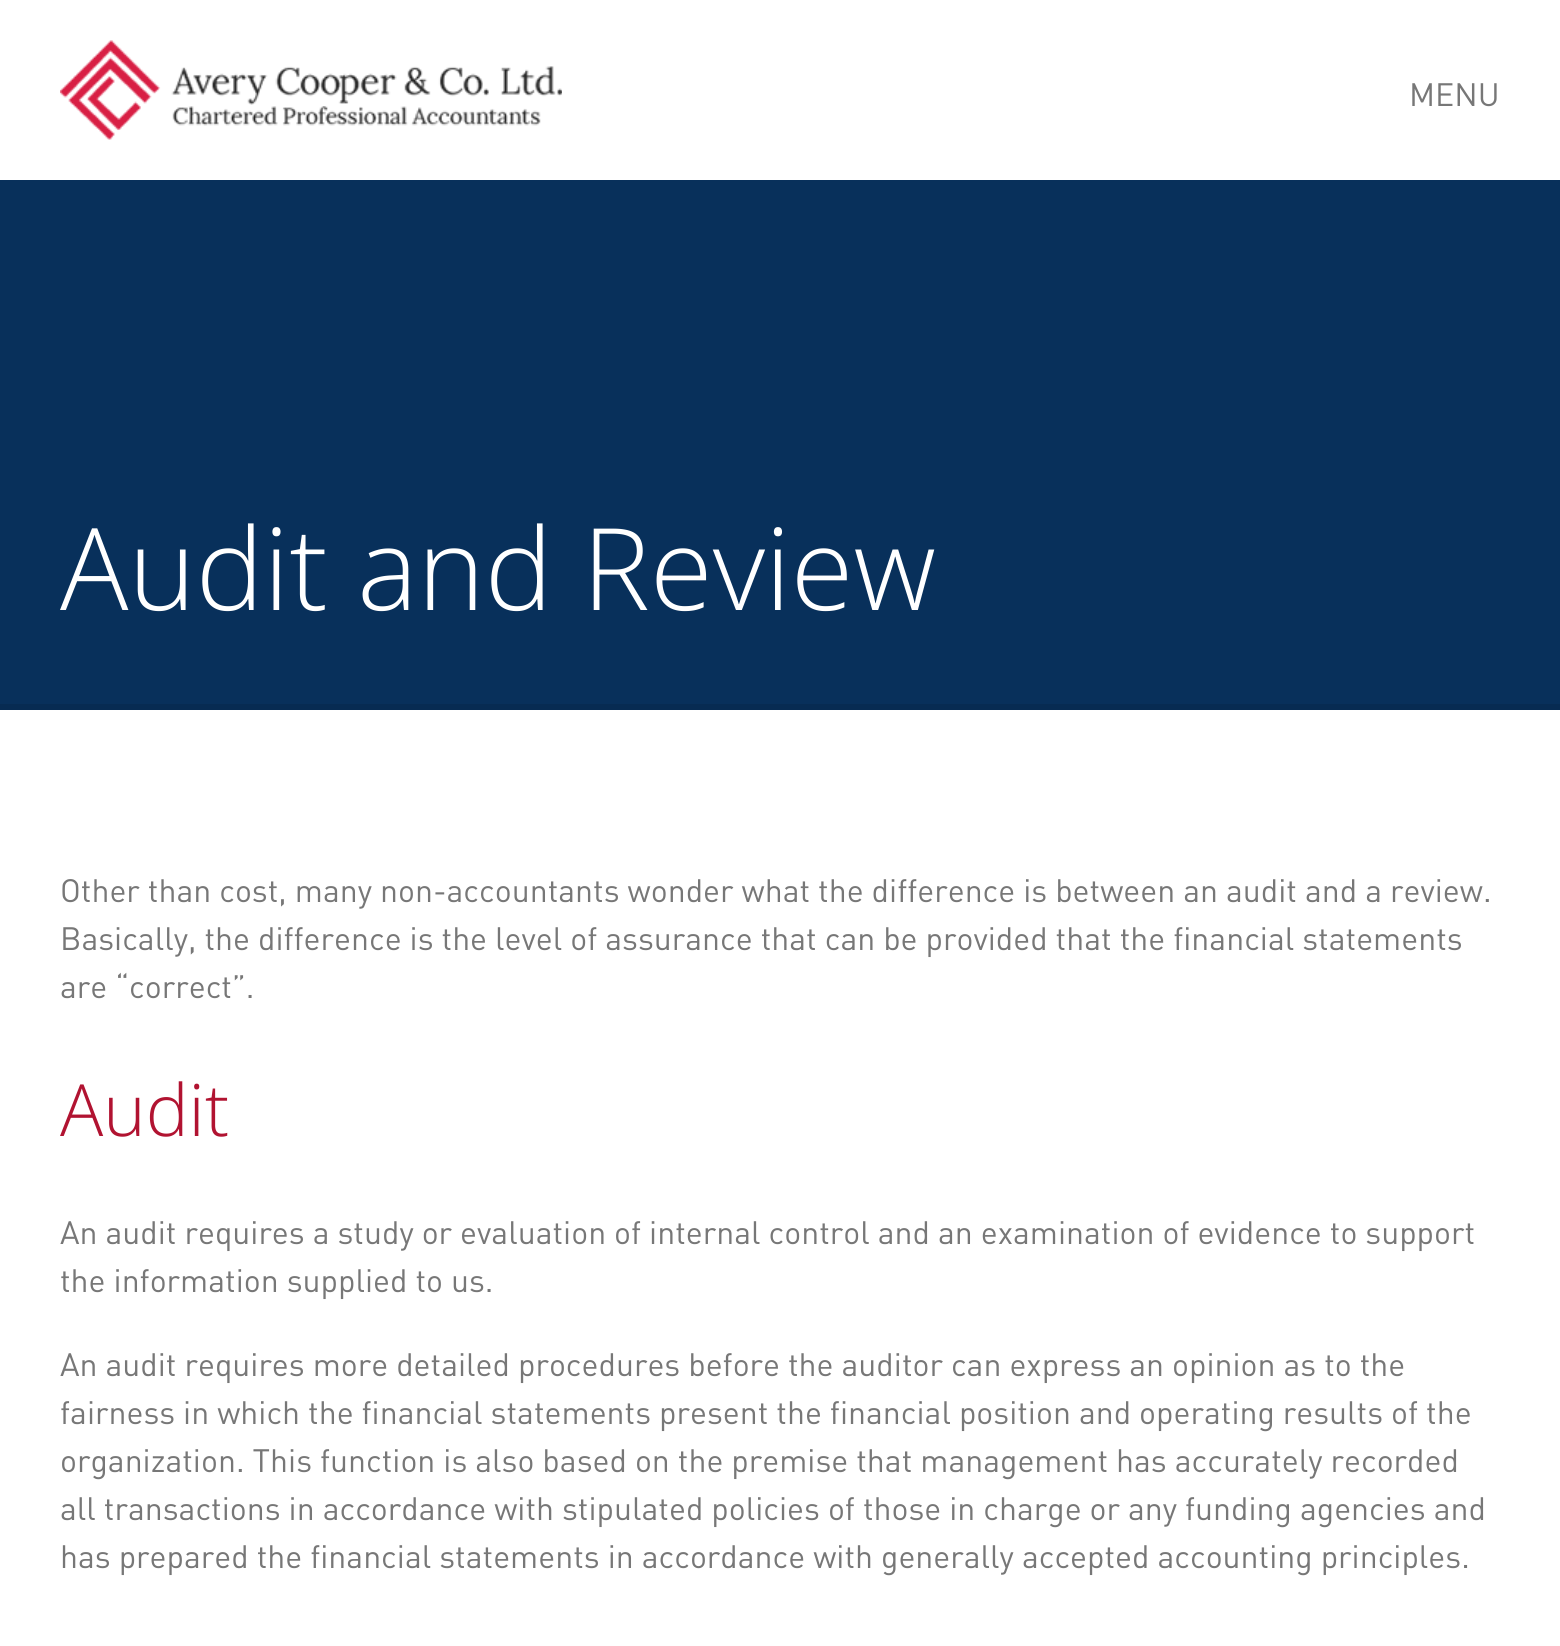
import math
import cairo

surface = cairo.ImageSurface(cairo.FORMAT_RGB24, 1560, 1646)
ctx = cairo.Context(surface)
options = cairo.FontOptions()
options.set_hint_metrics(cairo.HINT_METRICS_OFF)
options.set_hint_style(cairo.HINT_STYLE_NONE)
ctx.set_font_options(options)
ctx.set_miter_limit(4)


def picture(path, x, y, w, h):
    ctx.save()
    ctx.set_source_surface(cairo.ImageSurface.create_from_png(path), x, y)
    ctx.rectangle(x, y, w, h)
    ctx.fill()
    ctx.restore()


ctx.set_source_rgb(1, 1, 1)
ctx.paint()
picture("img1.png", 60, 40, 502, 100)
ctx.select_font_face("DIN")
ctx.set_font_size(32)
ctx.set_source_rgb(0.467, 0.467, 0.467)
ctx.move_to(1409, 106)
ctx.show_text("MENU")
ctx.set_source_rgb(0.035, 0.188, 0.357)
ctx.rectangle(0, 180, 1560, 524)
ctx.fill()
ctx.set_source_rgb(0.031, 0.169, 0.322)
ctx.rectangle(0, 704, 1560, 6)
ctx.fill()
ctx.select_font_face("Open Sans Light")
ctx.set_font_size(114)
ctx.set_source_rgb(1, 1, 1)
ctx.move_to(60, 610)
ctx.show_text("Audit and Review")
ctx.select_font_face("DIN")
ctx.set_font_size(32)
ctx.set_source_rgb(0.467, 0.467, 0.467)
ctx.move_to(60, 902)
ctx.show_text("Other than cost, many non-accountants wonder what the difference is between an audit and a review.")
ctx.move_to(60, 950)
ctx.show_text("Basically, the difference is the level of assurance that can be provided that the financial statements")
ctx.move_to(60, 998)
ctx.show_text("are “correct”.")
ctx.select_font_face("Open Sans Light")
ctx.set_font_size(72)
ctx.set_source_rgb(0.694, 0.075, 0.192)
ctx.move_to(60, 1136)
ctx.show_text("Audit")
ctx.select_font_face("DIN")
ctx.set_font_size(32)
ctx.set_source_rgb(0.467, 0.467, 0.467)
ctx.move_to(60, 1244)
ctx.show_text("An audit requires a study or evaluation of internal control and an examination of evidence to support")
ctx.move_to(60, 1292)
ctx.show_text("the information supplied to us.")
ctx.move_to(60, 1376)
ctx.show_text("An audit requires more detailed procedures before the auditor can express an opinion as to the")
ctx.move_to(60, 1424)
ctx.show_text("fairness in which the financial statements present the financial position and operating results of the")
ctx.move_to(60, 1472)
ctx.show_text("organization. This function is also based on the premise that management has accurately recorded")
ctx.move_to(60, 1520)
ctx.show_text("all transactions in accordance with stipulated policies of those in charge or any funding agencies and")
ctx.move_to(60, 1568)
ctx.show_text("has prepared the financial statements in accordance with generally accepted accounting principles.")
surface.write_to_png("page.png")
